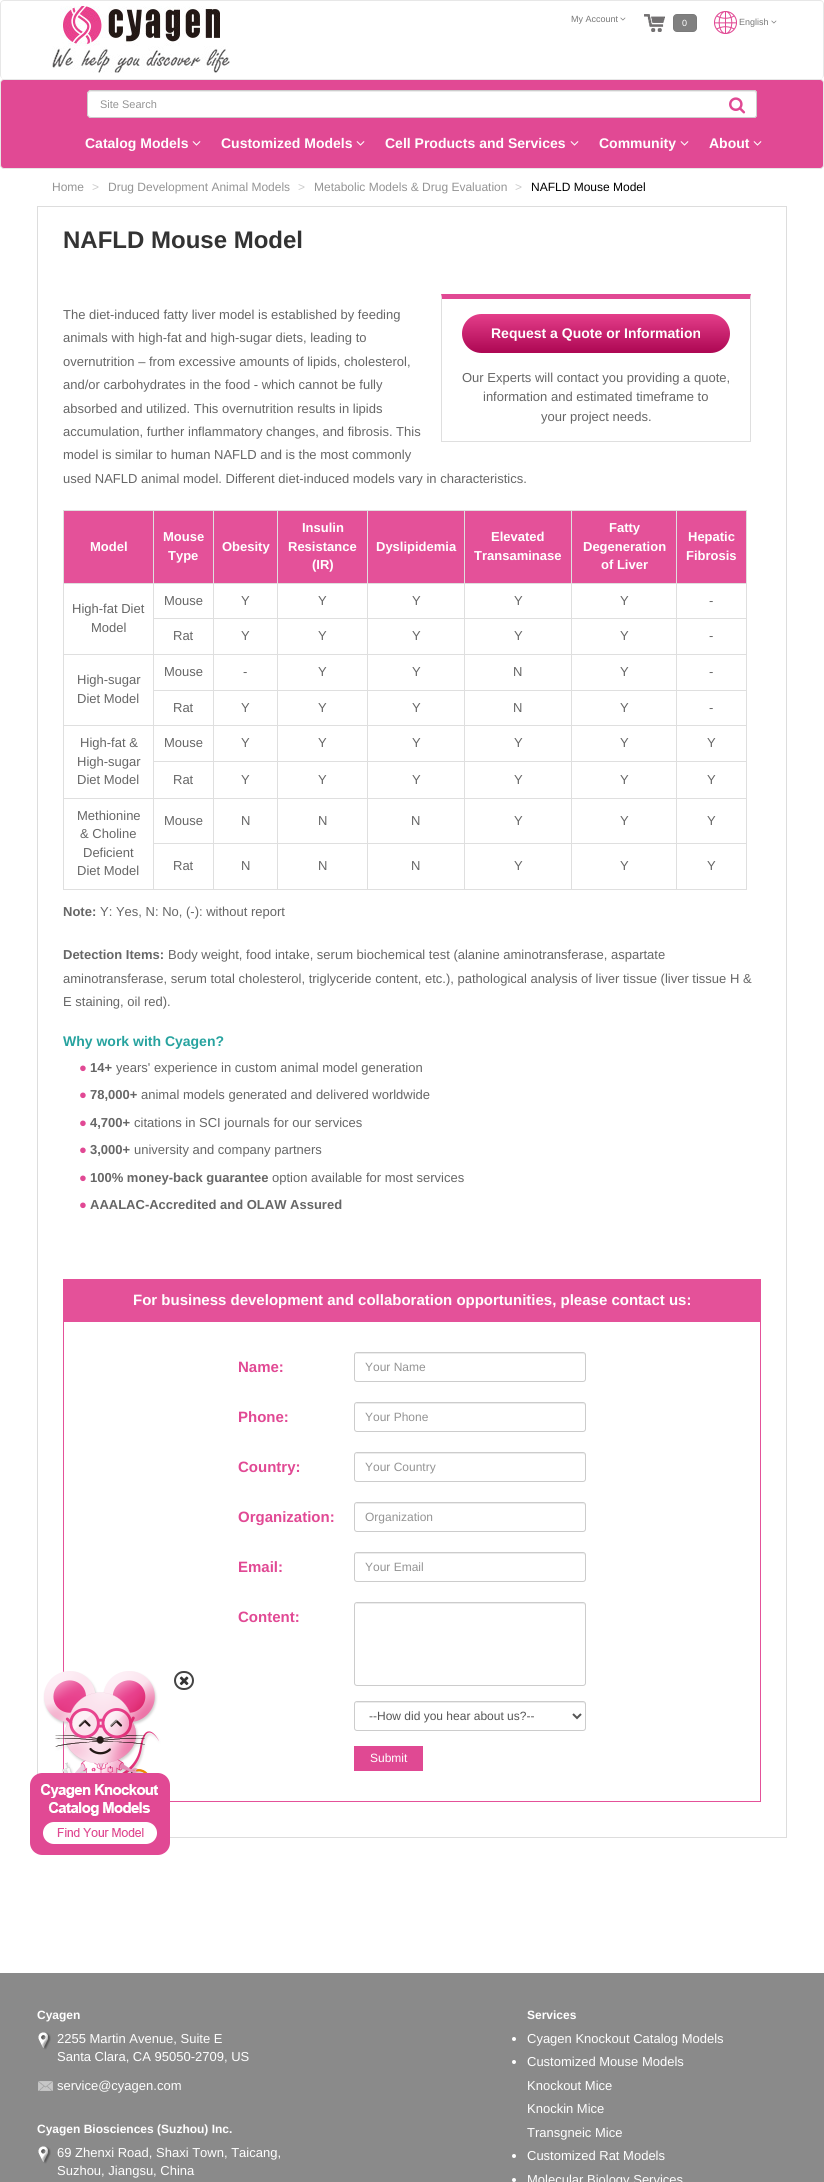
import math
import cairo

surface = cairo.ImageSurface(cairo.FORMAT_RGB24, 824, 2182)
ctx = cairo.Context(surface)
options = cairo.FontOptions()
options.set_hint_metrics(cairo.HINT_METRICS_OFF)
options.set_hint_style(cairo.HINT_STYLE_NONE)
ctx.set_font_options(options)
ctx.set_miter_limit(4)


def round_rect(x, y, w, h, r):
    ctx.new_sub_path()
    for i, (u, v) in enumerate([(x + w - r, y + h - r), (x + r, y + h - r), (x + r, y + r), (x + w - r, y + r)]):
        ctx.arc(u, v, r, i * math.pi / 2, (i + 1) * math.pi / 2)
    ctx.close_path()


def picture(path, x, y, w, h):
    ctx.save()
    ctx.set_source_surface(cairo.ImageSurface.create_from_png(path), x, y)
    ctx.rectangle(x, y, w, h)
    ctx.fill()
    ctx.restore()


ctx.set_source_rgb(1, 1, 1)
ctx.paint()
ctx.set_source_rgb(0.906, 0.906, 0.906)
ctx.set_fill_rule(cairo.FILL_RULE_EVEN_ODD)
ctx.new_path()
ctx.move_to(4, 0)
ctx.line_to(820, 0)
ctx.curve_to(822, 0, 824, 2, 824, 4)
ctx.line_to(824, 75)
ctx.curve_to(824, 77, 822, 79, 820, 79)
ctx.line_to(4, 79)
ctx.curve_to(2, 79, 0, 77, 0, 75)
ctx.line_to(0, 4)
ctx.curve_to(0, 2, 2, 0, 4, 0)
ctx.close_path()
ctx.move_to(4, 1)
ctx.line_to(820, 1)
ctx.curve_to(822, 1, 823, 2, 823, 4)
ctx.line_to(823, 75)
ctx.curve_to(823, 77, 822, 79, 820, 79)
ctx.line_to(4, 79)
ctx.curve_to(2, 79, 1, 77, 1, 75)
ctx.line_to(1, 4)
ctx.curve_to(1, 2, 2, 1, 4, 1)
ctx.close_path()
ctx.fill()
picture("img1.png", 52, 6, 178, 67)
ctx.select_font_face("Liberation Sans")
ctx.set_font_size(9)
ctx.set_source_rgb(0.467, 0.467, 0.467)
ctx.move_to(571, 22)
ctx.show_text("My Account")
picture("img2.png", 620, 17, 6, 4)
picture("img3.png", 644, 14, 21, 18)
ctx.set_source_rgb(0.502, 0.502, 0.502)
round_rect(673.5, 14.5, 23, 17, 3.5)
ctx.fill_preserve()
ctx.set_source_rgb(0.478, 0.478, 0.478)
ctx.set_line_width(1)
ctx.stroke()
ctx.set_source_rgb(1, 1, 1)
ctx.move_to(682, 26)
ctx.show_text("0")
picture("img4.png", 714, 11, 23, 23)
ctx.set_source_rgb(0.467, 0.467, 0.467)
ctx.move_to(739, 25)
ctx.show_text("English")
picture("img2.png", 771, 20, 6, 4)
ctx.set_source_rgb(0.882, 0.286, 0.58)
round_rect(0.5, 79.5, 823, 89, 3.5)
ctx.fill_preserve()
ctx.set_source_rgb(0.906, 0.906, 0.906)
ctx.stroke()
ctx.set_source_rgb(1, 1, 1)
ctx.new_path()
ctx.move_to(91, 90)
ctx.line_to(754, 90)
ctx.curve_to(755.5, 90, 757, 91.5, 757, 93)
ctx.line_to(757, 115)
ctx.curve_to(757, 116.5, 755.5, 118, 754, 118)
ctx.line_to(91, 118)
ctx.curve_to(89, 118, 87, 116, 87, 114)
ctx.line_to(87, 94)
ctx.curve_to(87, 92, 89, 90, 91, 90)
ctx.close_path()
ctx.fill()
ctx.set_source_rgb(0.925, 0.925, 0.925)
ctx.set_fill_rule(cairo.FILL_RULE_WINDING)
ctx.new_path()
ctx.move_to(91, 92)
ctx.line_to(754, 92)
ctx.curve_to(755, 92, 756, 93, 756, 94)
ctx.line_to(756, 93)
ctx.curve_to(756, 92, 755, 91, 754, 91)
ctx.line_to(91, 91)
ctx.curve_to(89, 91, 88, 92, 88, 94)
ctx.line_to(88, 95)
ctx.curve_to(88, 93, 89, 92, 91, 92)
ctx.close_path()
ctx.fill()
ctx.new_path()
ctx.move_to(91, 90.5)
ctx.line_to(754, 90.5)
ctx.curve_to(755.5, 90.5, 756.5, 91.5, 756.5, 93)
ctx.line_to(756.5, 115)
ctx.curve_to(756.5, 116.5, 755.5, 117.5, 754, 117.5)
ctx.line_to(91, 117.5)
ctx.curve_to(89, 117.5, 87.5, 116, 87.5, 114)
ctx.line_to(87.5, 94)
ctx.curve_to(87.5, 92, 89, 90.5, 91, 90.5)
ctx.close_path()
ctx.set_source_rgb(0.8, 0.8, 0.8)
ctx.stroke()
ctx.set_font_size(11)
ctx.set_source_rgb(0.58, 0.58, 0.58)
ctx.move_to(100, 108)
ctx.show_text("Site Search")
picture("img5.png", 729, 97, 17, 17)
ctx.select_font_face("Liberation Sans", cairo.FONT_SLANT_NORMAL, cairo.FONT_WEIGHT_BOLD)
ctx.set_font_size(14)
ctx.set_source_rgb(1, 1, 1)
ctx.move_to(85, 148)
ctx.show_text("Catalog Models")
picture("img6.png", 192, 141, 9, 5)
ctx.move_to(221, 148)
ctx.show_text("Customized Models")
picture("img6.png", 356, 141, 9, 5)
ctx.move_to(385, 148)
ctx.show_text("Cell Products and Services")
picture("img6.png", 570, 141, 9, 5)
ctx.move_to(599, 148)
ctx.show_text("Community")
picture("img6.png", 680, 141, 9, 5)
ctx.move_to(709, 148)
ctx.show_text("About")
picture("img6.png", 753, 141, 9, 5)
ctx.select_font_face("Liberation Sans")
ctx.set_font_size(12)
ctx.set_source_rgb(0.58, 0.58, 0.58)
ctx.move_to(52, 191)
ctx.show_text("Home")
ctx.set_source_rgb(0.8, 0.8, 0.8)
ctx.move_to(92, 191)
ctx.show_text(">")
ctx.set_source_rgb(0.58, 0.58, 0.58)
ctx.move_to(108, 191)
ctx.show_text("Drug Development Animal Models")
ctx.set_source_rgb(0.8, 0.8, 0.8)
ctx.move_to(298, 191)
ctx.show_text(">")
ctx.set_source_rgb(0.58, 0.58, 0.58)
ctx.move_to(314, 191)
ctx.show_text("Metabolic Models & Drug Evaluation")
ctx.set_source_rgb(0.8, 0.8, 0.8)
ctx.move_to(515, 191)
ctx.show_text(">")
ctx.set_source_rgb(0, 0, 0)
ctx.move_to(531, 191)
ctx.show_text("NAFLD Mouse Model")
ctx.rectangle(37.5, 206.5, 749, 1631)
ctx.set_source_rgb(0.867, 0.867, 0.867)
ctx.stroke()
ctx.select_font_face("Liberation Sans", cairo.FONT_SLANT_NORMAL, cairo.FONT_WEIGHT_BOLD)
ctx.set_font_size(24)
ctx.set_source_rgb(0.2, 0.2, 0.2)
ctx.move_to(63, 248)
ctx.show_text("NAFLD Mouse Model")
ctx.select_font_face("Liberation Sans")
ctx.set_font_size(13)
ctx.set_source_rgb(0.4, 0.4, 0.4)
ctx.move_to(63, 319)
ctx.show_text("The diet-induced fatty liver model is established by feeding")
ctx.move_to(63, 342)
ctx.show_text("animals with high-fat and high-sugar diets, leading to")
ctx.move_to(63, 366)
ctx.show_text("overnutrition – from excessive amounts of lipids, cholesterol,")
ctx.move_to(63, 389)
ctx.show_text("and/or carbohydrates in the food - which cannot be fully")
ctx.move_to(63, 413)
ctx.show_text("absorbed and utilized. This overnutrition results in lipids")
ctx.move_to(63, 436)
ctx.show_text("accumulation, further inflammatory changes, and fibrosis. This")
ctx.move_to(63, 459)
ctx.show_text("model is similar to human NAFLD and is the most commonly")
ctx.move_to(63, 483)
ctx.show_text("used NAFLD animal model. Different diet-induced models vary in characteristics.")
ctx.set_source_rgb(0.882, 0.286, 0.58)
ctx.new_path()
ctx.move_to(441, 294)
ctx.line_to(751, 294)
ctx.line_to(750, 299)
ctx.line_to(442, 299)
ctx.close_path()
ctx.fill()
ctx.set_source_rgb(0.875, 0.875, 0.875)
ctx.new_path()
ctx.move_to(751, 294)
ctx.line_to(751, 442)
ctx.line_to(750, 441)
ctx.line_to(750, 299)
ctx.close_path()
ctx.fill()
ctx.rectangle(441, 441, 310, 1)
ctx.fill()
ctx.new_path()
ctx.move_to(441, 442)
ctx.line_to(441, 294)
ctx.line_to(442, 299)
ctx.line_to(442, 441)
ctx.close_path()
ctx.fill()
gradient = cairo.LinearGradient(596, 314, 596, 353)
gradient.add_color_stop_rgba(0, 0.894, 0.243, 0.541, 1)
gradient.add_color_stop_rgba(1, 0.678, 0.027, 0.325, 1)
ctx.set_source(gradient)
round_rect(462, 314, 268, 39, 19.5)
ctx.fill()
ctx.select_font_face("Liberation Sans", cairo.FONT_SLANT_NORMAL, cairo.FONT_WEIGHT_BOLD)
ctx.set_font_size(14)
ctx.set_source_rgb(1, 1, 1)
ctx.move_to(491, 338)
ctx.show_text("Request a Quote or Information")
ctx.select_font_face("Liberation Sans")
ctx.set_font_size(13)
ctx.set_source_rgb(0.4, 0.4, 0.4)
ctx.move_to(462, 382)
ctx.show_text("Our Experts will contact you providing a quote,")
ctx.move_to(483, 401)
ctx.show_text("information and estimated timeframe to")
ctx.move_to(541, 421)
ctx.show_text("your project needs.")
ctx.set_source_rgb(0.894, 0.318, 0.6)
ctx.rectangle(64, 511, 89, 72)
ctx.fill()
ctx.set_source_rgb(0.875, 0.875, 0.875)
ctx.rectangle(676, 510, 71, 1)
ctx.fill()
ctx.rectangle(676, 583, 71, 1)
ctx.fill()
ctx.rectangle(676, 618, 71, 1)
ctx.fill()
ctx.rectangle(676, 654, 71, 1)
ctx.fill()
ctx.rectangle(676, 690, 71, 1)
ctx.fill()
ctx.rectangle(676, 725, 71, 1)
ctx.fill()
ctx.rectangle(676, 761, 71, 1)
ctx.fill()
ctx.rectangle(676, 798, 71, 1)
ctx.fill()
ctx.rectangle(676, 843, 71, 1)
ctx.fill()
ctx.rectangle(746, 843, 1, 47)
ctx.fill()
ctx.rectangle(676, 889, 71, 1)
ctx.fill()
ctx.rectangle(676, 843, 1, 47)
ctx.fill()
ctx.rectangle(571, 843, 106, 1)
ctx.fill()
ctx.rectangle(676, 798, 1, 46)
ctx.fill()
ctx.rectangle(571, 798, 106, 1)
ctx.fill()
ctx.rectangle(676, 761, 1, 38)
ctx.fill()
ctx.rectangle(571, 761, 106, 1)
ctx.fill()
ctx.rectangle(676, 725, 1, 37)
ctx.fill()
ctx.rectangle(571, 725, 106, 1)
ctx.fill()
ctx.rectangle(676, 690, 1, 36)
ctx.fill()
ctx.rectangle(571, 690, 106, 1)
ctx.fill()
ctx.rectangle(676, 654, 1, 37)
ctx.fill()
ctx.rectangle(571, 654, 106, 1)
ctx.fill()
ctx.rectangle(676, 618, 1, 37)
ctx.fill()
ctx.rectangle(571, 618, 106, 1)
ctx.fill()
ctx.rectangle(676, 583, 1, 36)
ctx.fill()
ctx.rectangle(571, 583, 106, 1)
ctx.fill()
ctx.rectangle(676, 510, 1, 74)
ctx.fill()
ctx.rectangle(571, 510, 106, 1)
ctx.fill()
ctx.rectangle(571, 889, 106, 1)
ctx.fill()
ctx.rectangle(571, 843, 1, 47)
ctx.fill()
ctx.rectangle(464, 843, 108, 1)
ctx.fill()
ctx.rectangle(571, 798, 1, 46)
ctx.fill()
ctx.rectangle(464, 798, 108, 1)
ctx.fill()
ctx.rectangle(571, 761, 1, 38)
ctx.fill()
ctx.rectangle(464, 761, 108, 1)
ctx.fill()
ctx.rectangle(571, 725, 1, 37)
ctx.fill()
ctx.rectangle(464, 725, 108, 1)
ctx.fill()
ctx.rectangle(571, 690, 1, 36)
ctx.fill()
ctx.rectangle(464, 690, 108, 1)
ctx.fill()
ctx.rectangle(571, 654, 1, 37)
ctx.fill()
ctx.rectangle(464, 654, 108, 1)
ctx.fill()
ctx.rectangle(571, 618, 1, 37)
ctx.fill()
ctx.rectangle(464, 618, 108, 1)
ctx.fill()
ctx.rectangle(571, 583, 1, 36)
ctx.fill()
ctx.rectangle(464, 583, 108, 1)
ctx.fill()
ctx.rectangle(571, 510, 1, 74)
ctx.fill()
ctx.rectangle(464, 510, 108, 1)
ctx.fill()
ctx.rectangle(464, 889, 108, 1)
ctx.fill()
ctx.rectangle(464, 843, 1, 47)
ctx.fill()
ctx.rectangle(367, 843, 98, 1)
ctx.fill()
ctx.rectangle(464, 798, 1, 46)
ctx.fill()
ctx.rectangle(367, 798, 98, 1)
ctx.fill()
ctx.rectangle(464, 761, 1, 38)
ctx.fill()
ctx.rectangle(367, 761, 98, 1)
ctx.fill()
ctx.rectangle(464, 725, 1, 37)
ctx.fill()
ctx.rectangle(367, 725, 98, 1)
ctx.fill()
ctx.rectangle(464, 690, 1, 36)
ctx.fill()
ctx.rectangle(367, 690, 98, 1)
ctx.fill()
ctx.rectangle(464, 654, 1, 37)
ctx.fill()
ctx.rectangle(367, 654, 98, 1)
ctx.fill()
ctx.rectangle(464, 618, 1, 37)
ctx.fill()
ctx.rectangle(367, 618, 98, 1)
ctx.fill()
ctx.rectangle(464, 583, 1, 36)
ctx.fill()
ctx.rectangle(367, 583, 98, 1)
ctx.fill()
ctx.rectangle(464, 510, 1, 74)
ctx.fill()
ctx.rectangle(367, 510, 98, 1)
ctx.fill()
ctx.rectangle(367, 889, 98, 1)
ctx.fill()
ctx.rectangle(367, 843, 1, 47)
ctx.fill()
ctx.rectangle(277, 843, 91, 1)
ctx.fill()
ctx.rectangle(367, 798, 1, 46)
ctx.fill()
ctx.rectangle(277, 798, 91, 1)
ctx.fill()
ctx.rectangle(367, 761, 1, 38)
ctx.fill()
ctx.rectangle(277, 761, 91, 1)
ctx.fill()
ctx.rectangle(367, 725, 1, 37)
ctx.fill()
ctx.rectangle(277, 725, 91, 1)
ctx.fill()
ctx.rectangle(367, 690, 1, 36)
ctx.fill()
ctx.rectangle(277, 690, 91, 1)
ctx.fill()
ctx.rectangle(367, 654, 1, 37)
ctx.fill()
ctx.rectangle(277, 654, 91, 1)
ctx.fill()
ctx.rectangle(367, 618, 1, 37)
ctx.fill()
ctx.rectangle(277, 618, 91, 1)
ctx.fill()
ctx.rectangle(367, 583, 1, 36)
ctx.fill()
ctx.rectangle(277, 583, 91, 1)
ctx.fill()
ctx.rectangle(367, 510, 1, 74)
ctx.fill()
ctx.rectangle(277, 510, 91, 1)
ctx.fill()
ctx.rectangle(277, 889, 91, 1)
ctx.fill()
ctx.rectangle(277, 843, 1, 47)
ctx.fill()
ctx.rectangle(213, 843, 65, 1)
ctx.fill()
ctx.rectangle(277, 798, 1, 46)
ctx.fill()
ctx.rectangle(213, 798, 65, 1)
ctx.fill()
ctx.rectangle(277, 761, 1, 38)
ctx.fill()
ctx.rectangle(213, 761, 65, 1)
ctx.fill()
ctx.rectangle(277, 725, 1, 37)
ctx.fill()
ctx.rectangle(213, 725, 65, 1)
ctx.fill()
ctx.rectangle(277, 690, 1, 36)
ctx.fill()
ctx.rectangle(213, 690, 65, 1)
ctx.fill()
ctx.rectangle(277, 654, 1, 37)
ctx.fill()
ctx.rectangle(213, 654, 65, 1)
ctx.fill()
ctx.rectangle(277, 618, 1, 37)
ctx.fill()
ctx.rectangle(213, 618, 65, 1)
ctx.fill()
ctx.rectangle(277, 583, 1, 36)
ctx.fill()
ctx.rectangle(213, 583, 65, 1)
ctx.fill()
ctx.rectangle(277, 510, 1, 74)
ctx.fill()
ctx.rectangle(213, 510, 65, 1)
ctx.fill()
ctx.rectangle(213, 889, 65, 1)
ctx.fill()
ctx.rectangle(213, 843, 1, 47)
ctx.fill()
ctx.rectangle(153, 843, 61, 1)
ctx.fill()
ctx.rectangle(213, 798, 1, 46)
ctx.fill()
ctx.rectangle(153, 798, 61, 1)
ctx.fill()
ctx.rectangle(213, 761, 1, 38)
ctx.fill()
ctx.rectangle(153, 761, 61, 1)
ctx.fill()
ctx.rectangle(213, 725, 1, 37)
ctx.fill()
ctx.rectangle(153, 725, 61, 1)
ctx.fill()
ctx.rectangle(213, 690, 1, 36)
ctx.fill()
ctx.rectangle(153, 690, 61, 1)
ctx.fill()
ctx.rectangle(213, 654, 1, 37)
ctx.fill()
ctx.rectangle(153, 654, 61, 1)
ctx.fill()
ctx.rectangle(213, 618, 1, 37)
ctx.fill()
ctx.rectangle(153, 618, 61, 1)
ctx.fill()
ctx.rectangle(213, 583, 1, 36)
ctx.fill()
ctx.rectangle(153, 583, 61, 1)
ctx.fill()
ctx.rectangle(213, 510, 1, 74)
ctx.fill()
ctx.rectangle(153, 510, 61, 1)
ctx.fill()
ctx.rectangle(153, 889, 61, 1)
ctx.fill()
ctx.rectangle(153, 843, 1, 47)
ctx.fill()
ctx.rectangle(153, 798, 1, 46)
ctx.fill()
ctx.rectangle(63, 798, 91, 1)
ctx.fill()
ctx.rectangle(153, 761, 1, 38)
ctx.fill()
ctx.rectangle(153, 725, 1, 37)
ctx.fill()
ctx.rectangle(63, 725, 91, 1)
ctx.fill()
ctx.rectangle(153, 690, 1, 36)
ctx.fill()
ctx.rectangle(153, 654, 1, 37)
ctx.fill()
ctx.rectangle(63, 654, 91, 1)
ctx.fill()
ctx.rectangle(153, 618, 1, 37)
ctx.fill()
ctx.rectangle(153, 583, 1, 36)
ctx.fill()
ctx.rectangle(63, 583, 91, 1)
ctx.fill()
ctx.rectangle(153, 510, 1, 74)
ctx.fill()
ctx.rectangle(63, 510, 91, 1)
ctx.fill()
ctx.rectangle(63, 889, 91, 1)
ctx.fill()
ctx.rectangle(63, 798, 1, 92)
ctx.fill()
ctx.rectangle(63, 725, 1, 74)
ctx.fill()
ctx.rectangle(63, 654, 1, 72)
ctx.fill()
ctx.rectangle(63, 583, 1, 72)
ctx.fill()
ctx.rectangle(63, 510, 1, 74)
ctx.fill()
ctx.select_font_face("Liberation Sans", cairo.FONT_SLANT_NORMAL, cairo.FONT_WEIGHT_BOLD)
ctx.set_source_rgb(1, 1, 1)
ctx.move_to(90, 551)
ctx.show_text("Model")
ctx.set_source_rgb(0.894, 0.318, 0.6)
ctx.rectangle(154, 511, 59, 72)
ctx.fill()
ctx.set_source_rgb(1, 1, 1)
ctx.move_to(163, 541)
ctx.show_text("Mouse")
ctx.move_to(168, 560)
ctx.show_text("Type")
ctx.set_source_rgb(0.894, 0.318, 0.6)
ctx.rectangle(214, 511, 63, 72)
ctx.fill()
ctx.set_source_rgb(1, 1, 1)
ctx.move_to(222, 551)
ctx.show_text("Obesity")
ctx.set_source_rgb(0.894, 0.318, 0.6)
ctx.rectangle(278, 511, 89, 72)
ctx.fill()
ctx.set_source_rgb(1, 1, 1)
ctx.move_to(302, 532)
ctx.show_text("Insulin")
ctx.move_to(288, 551)
ctx.show_text("Resistance")
ctx.move_to(312, 569)
ctx.show_text("(IR)")
ctx.set_source_rgb(0.894, 0.318, 0.6)
ctx.rectangle(368, 511, 96, 72)
ctx.fill()
ctx.set_source_rgb(1, 1, 1)
ctx.move_to(376, 551)
ctx.show_text("Dyslipidemia")
ctx.set_source_rgb(0.894, 0.318, 0.6)
ctx.rectangle(465, 511, 106, 72)
ctx.fill()
ctx.set_source_rgb(1, 1, 1)
ctx.move_to(491, 541)
ctx.show_text("Elevated")
ctx.move_to(474, 560)
ctx.show_text("Transaminase")
ctx.set_source_rgb(0.894, 0.318, 0.6)
ctx.rectangle(572, 511, 104, 72)
ctx.fill()
ctx.set_source_rgb(1, 1, 1)
ctx.move_to(609, 532)
ctx.show_text("Fatty")
ctx.move_to(583, 551)
ctx.show_text("Degeneration")
ctx.move_to(601, 569)
ctx.show_text("of Liver")
ctx.set_source_rgb(0.894, 0.318, 0.6)
ctx.rectangle(677, 511, 69, 72)
ctx.fill()
ctx.set_source_rgb(0.875, 0.875, 0.875)
ctx.rectangle(746, 798, 1, 46)
ctx.fill()
ctx.rectangle(746, 761, 1, 38)
ctx.fill()
ctx.rectangle(746, 725, 1, 37)
ctx.fill()
ctx.rectangle(746, 690, 1, 36)
ctx.fill()
ctx.rectangle(746, 654, 1, 37)
ctx.fill()
ctx.rectangle(746, 618, 1, 37)
ctx.fill()
ctx.rectangle(746, 583, 1, 36)
ctx.fill()
ctx.rectangle(746, 510, 1, 74)
ctx.fill()
ctx.set_source_rgb(1, 1, 1)
ctx.move_to(688, 541)
ctx.show_text("Hepatic")
ctx.move_to(686, 560)
ctx.show_text("Fibrosis")
ctx.select_font_face("Liberation Sans")
ctx.set_source_rgb(0.4, 0.4, 0.4)
ctx.move_to(164, 605)
ctx.show_text("Mouse")
ctx.move_to(241, 605)
ctx.show_text("Y")
ctx.move_to(318, 605)
ctx.show_text("Y")
ctx.move_to(412, 605)
ctx.show_text("Y")
ctx.move_to(514, 605)
ctx.show_text("Y")
ctx.move_to(620, 605)
ctx.show_text("Y")
ctx.move_to(709, 605)
ctx.show_text("-")
ctx.move_to(72, 613)
ctx.show_text("High-fat Diet")
ctx.move_to(91, 632)
ctx.show_text("Model")
ctx.move_to(173, 640)
ctx.show_text("Rat")
ctx.move_to(241, 640)
ctx.show_text("Y")
ctx.move_to(318, 640)
ctx.show_text("Y")
ctx.move_to(412, 640)
ctx.show_text("Y")
ctx.move_to(514, 640)
ctx.show_text("Y")
ctx.move_to(620, 640)
ctx.show_text("Y")
ctx.move_to(709, 640)
ctx.show_text("-")
ctx.move_to(164, 676)
ctx.show_text("Mouse")
ctx.move_to(243, 676)
ctx.show_text("-")
ctx.move_to(318, 676)
ctx.show_text("Y")
ctx.move_to(412, 676)
ctx.show_text("Y")
ctx.move_to(513, 676)
ctx.show_text("N")
ctx.move_to(620, 676)
ctx.show_text("Y")
ctx.move_to(709, 676)
ctx.show_text("-")
ctx.move_to(77, 684)
ctx.show_text("High-sugar")
ctx.move_to(77, 703)
ctx.show_text("Diet Model")
ctx.move_to(173, 712)
ctx.show_text("Rat")
ctx.move_to(241, 712)
ctx.show_text("Y")
ctx.move_to(318, 712)
ctx.show_text("Y")
ctx.move_to(412, 712)
ctx.show_text("Y")
ctx.move_to(513, 712)
ctx.show_text("N")
ctx.move_to(620, 712)
ctx.show_text("Y")
ctx.move_to(709, 712)
ctx.show_text("-")
ctx.move_to(80, 747)
ctx.show_text("High-fat &")
ctx.move_to(77, 766)
ctx.show_text("High-sugar")
ctx.move_to(77, 784)
ctx.show_text("Diet Model")
ctx.move_to(164, 747)
ctx.show_text("Mouse")
ctx.move_to(241, 747)
ctx.show_text("Y")
ctx.move_to(318, 747)
ctx.show_text("Y")
ctx.move_to(412, 747)
ctx.show_text("Y")
ctx.move_to(514, 747)
ctx.show_text("Y")
ctx.move_to(620, 747)
ctx.show_text("Y")
ctx.move_to(707, 747)
ctx.show_text("Y")
ctx.move_to(173, 784)
ctx.show_text("Rat")
ctx.move_to(241, 784)
ctx.show_text("Y")
ctx.move_to(318, 784)
ctx.show_text("Y")
ctx.move_to(412, 784)
ctx.show_text("Y")
ctx.move_to(514, 784)
ctx.show_text("Y")
ctx.move_to(620, 784)
ctx.show_text("Y")
ctx.move_to(707, 784)
ctx.show_text("Y")
ctx.move_to(77, 820)
ctx.show_text("Methionine")
ctx.move_to(80, 838)
ctx.show_text("& Choline")
ctx.move_to(83, 857)
ctx.show_text("Deficient")
ctx.move_to(77, 875)
ctx.show_text("Diet Model")
ctx.move_to(164, 825)
ctx.show_text("Mouse")
ctx.move_to(241, 825)
ctx.show_text("N")
ctx.move_to(318, 825)
ctx.show_text("N")
ctx.move_to(411, 825)
ctx.show_text("N")
ctx.move_to(514, 825)
ctx.show_text("Y")
ctx.move_to(620, 825)
ctx.show_text("Y")
ctx.move_to(707, 825)
ctx.show_text("Y")
ctx.move_to(173, 870)
ctx.show_text("Rat")
ctx.move_to(241, 870)
ctx.show_text("N")
ctx.move_to(318, 870)
ctx.show_text("N")
ctx.move_to(411, 870)
ctx.show_text("N")
ctx.move_to(514, 870)
ctx.show_text("Y")
ctx.move_to(620, 870)
ctx.show_text("Y")
ctx.move_to(707, 870)
ctx.show_text("Y")
ctx.select_font_face("Liberation Sans", cairo.FONT_SLANT_NORMAL, cairo.FONT_WEIGHT_BOLD)
ctx.move_to(63, 916)
ctx.show_text("Note:")
ctx.select_font_face("Liberation Sans")
ctx.move_to(100, 916)
ctx.show_text("Y: Yes, N: No, (-): without report")
ctx.select_font_face("Liberation Sans", cairo.FONT_SLANT_NORMAL, cairo.FONT_WEIGHT_BOLD)
ctx.move_to(63, 959)
ctx.show_text("Detection Items:")
ctx.select_font_face("Liberation Sans")
ctx.move_to(168, 959)
ctx.show_text("Body weight, food intake, serum biochemical test (alanine aminotransferase, aspartate")
ctx.move_to(63, 983)
ctx.show_text("aminotransferase, serum total cholesterol, triglyceride content, etc.), pathological analysis of liver tissue (liver tissue H &")
ctx.move_to(63, 1006)
ctx.show_text("E staining, oil red).")
ctx.select_font_face("Liberation Sans", cairo.FONT_SLANT_NORMAL, cairo.FONT_WEIGHT_BOLD)
ctx.set_font_size(14)
ctx.set_source_rgb(0.153, 0.639, 0.624)
ctx.move_to(63, 1046)
ctx.show_text("Why work with Cyagen?")
ctx.select_font_face("Liberation Sans")
ctx.set_font_size(13)
ctx.set_source_rgb(0.882, 0.286, 0.58)
ctx.move_to(79, 1072)
ctx.show_text("●")
ctx.select_font_face("Liberation Sans", cairo.FONT_SLANT_NORMAL, cairo.FONT_WEIGHT_BOLD)
ctx.set_source_rgb(0.4, 0.4, 0.4)
ctx.move_to(90, 1072)
ctx.show_text("14+")
ctx.select_font_face("Liberation Sans")
ctx.move_to(116, 1072)
ctx.show_text("years' experience in custom animal model generation")
ctx.set_source_rgb(0.882, 0.286, 0.58)
ctx.move_to(79, 1099)
ctx.show_text("●")
ctx.select_font_face("Liberation Sans", cairo.FONT_SLANT_NORMAL, cairo.FONT_WEIGHT_BOLD)
ctx.set_source_rgb(0.4, 0.4, 0.4)
ctx.move_to(90, 1099)
ctx.show_text("78,000+")
ctx.select_font_face("Liberation Sans")
ctx.move_to(141, 1099)
ctx.show_text("animal models generated and delivered worldwide")
ctx.set_source_rgb(0.882, 0.286, 0.58)
ctx.move_to(79, 1127)
ctx.show_text("●")
ctx.select_font_face("Liberation Sans", cairo.FONT_SLANT_NORMAL, cairo.FONT_WEIGHT_BOLD)
ctx.set_source_rgb(0.4, 0.4, 0.4)
ctx.move_to(90, 1127)
ctx.show_text("4,700+")
ctx.select_font_face("Liberation Sans")
ctx.move_to(134, 1127)
ctx.show_text("citations in SCI journals for our services")
ctx.set_source_rgb(0.882, 0.286, 0.58)
ctx.move_to(79, 1154)
ctx.show_text("●")
ctx.select_font_face("Liberation Sans", cairo.FONT_SLANT_NORMAL, cairo.FONT_WEIGHT_BOLD)
ctx.set_source_rgb(0.4, 0.4, 0.4)
ctx.move_to(90, 1154)
ctx.show_text("3,000+")
ctx.select_font_face("Liberation Sans")
ctx.move_to(134, 1154)
ctx.show_text("university and company partners")
ctx.set_source_rgb(0.882, 0.286, 0.58)
ctx.move_to(79, 1182)
ctx.show_text("●")
ctx.select_font_face("Liberation Sans", cairo.FONT_SLANT_NORMAL, cairo.FONT_WEIGHT_BOLD)
ctx.set_source_rgb(0.4, 0.4, 0.4)
ctx.move_to(90, 1182)
ctx.show_text("100% money-back guarantee")
ctx.select_font_face("Liberation Sans")
ctx.move_to(272, 1182)
ctx.show_text("option available for most services")
ctx.set_source_rgb(0.882, 0.286, 0.58)
ctx.move_to(79, 1209)
ctx.show_text("●")
ctx.select_font_face("Liberation Sans", cairo.FONT_SLANT_NORMAL, cairo.FONT_WEIGHT_BOLD)
ctx.set_source_rgb(0.4, 0.4, 0.4)
ctx.move_to(90, 1209)
ctx.show_text("AAALAC-Accredited and OLAW Assured")
ctx.set_source_rgb(0.894, 0.318, 0.6)
ctx.rectangle(63, 1279, 698, 42)
ctx.fill()
ctx.set_font_size(15)
ctx.set_source_rgb(1, 1, 1)
ctx.move_to(133, 1305)
ctx.show_text("For business development and collaboration opportunities, please contact us:")
ctx.rectangle(63.5, 1321.5, 697, 480)
ctx.set_source_rgb(0.894, 0.318, 0.6)
ctx.stroke()
ctx.set_source_rgb(0.882, 0.286, 0.58)
ctx.move_to(238, 1372)
ctx.show_text("Name:")
ctx.set_source_rgb(0.925, 0.925, 0.925)
ctx.new_path()
ctx.move_to(357, 1354)
ctx.line_to(583, 1354)
ctx.curve_to(584, 1354, 585, 1355, 585, 1356)
ctx.curve_to(585, 1355, 585, 1353, 583, 1353)
ctx.line_to(357, 1353)
ctx.line_to(356, 1354)
ctx.line_to(355, 1356)
ctx.curve_to(355, 1355, 356, 1354, 357, 1354)
ctx.close_path()
ctx.fill()
round_rect(354.5, 1352.5, 231, 29, 2.5)
ctx.set_source_rgb(0.8, 0.8, 0.8)
ctx.stroke()
ctx.select_font_face("Liberation Sans")
ctx.set_font_size(12)
ctx.set_source_rgb(0.58, 0.58, 0.58)
ctx.move_to(365, 1371)
ctx.show_text("Your Name")
ctx.select_font_face("Liberation Sans", cairo.FONT_SLANT_NORMAL, cairo.FONT_WEIGHT_BOLD)
ctx.set_font_size(15)
ctx.set_source_rgb(0.882, 0.286, 0.58)
ctx.move_to(238, 1422)
ctx.show_text("Phone:")
ctx.set_source_rgb(0.925, 0.925, 0.925)
ctx.new_path()
ctx.move_to(357, 1404)
ctx.line_to(583, 1404)
ctx.curve_to(584, 1404, 585, 1405, 585, 1406)
ctx.curve_to(585, 1405, 585, 1403, 583, 1403)
ctx.line_to(357, 1403)
ctx.line_to(356, 1404)
ctx.line_to(355, 1406)
ctx.curve_to(355, 1405, 356, 1404, 357, 1404)
ctx.close_path()
ctx.fill()
round_rect(354.5, 1402.5, 231, 29, 2.5)
ctx.set_source_rgb(0.8, 0.8, 0.8)
ctx.stroke()
ctx.select_font_face("Liberation Sans")
ctx.set_font_size(12)
ctx.set_source_rgb(0.58, 0.58, 0.58)
ctx.move_to(365, 1421)
ctx.show_text("Your Phone")
ctx.select_font_face("Liberation Sans", cairo.FONT_SLANT_NORMAL, cairo.FONT_WEIGHT_BOLD)
ctx.set_font_size(15)
ctx.set_source_rgb(0.882, 0.286, 0.58)
ctx.move_to(238, 1472)
ctx.show_text("Country:")
ctx.set_source_rgb(0.925, 0.925, 0.925)
ctx.new_path()
ctx.move_to(357, 1454)
ctx.line_to(583, 1454)
ctx.curve_to(584, 1454, 585, 1455, 585, 1456)
ctx.curve_to(585, 1455, 585, 1453, 583, 1453)
ctx.line_to(357, 1453)
ctx.line_to(356, 1454)
ctx.line_to(355, 1456)
ctx.curve_to(355, 1455, 356, 1454, 357, 1454)
ctx.close_path()
ctx.fill()
round_rect(354.5, 1452.5, 231, 29, 2.5)
ctx.set_source_rgb(0.8, 0.8, 0.8)
ctx.stroke()
ctx.select_font_face("Liberation Sans")
ctx.set_font_size(12)
ctx.set_source_rgb(0.58, 0.58, 0.58)
ctx.move_to(365, 1471)
ctx.show_text("Your Country")
ctx.select_font_face("Liberation Sans", cairo.FONT_SLANT_NORMAL, cairo.FONT_WEIGHT_BOLD)
ctx.set_font_size(15)
ctx.set_source_rgb(0.882, 0.286, 0.58)
ctx.move_to(238, 1522)
ctx.show_text("Organization:")
ctx.set_source_rgb(0.925, 0.925, 0.925)
ctx.new_path()
ctx.move_to(357, 1504)
ctx.line_to(583, 1504)
ctx.curve_to(584, 1504, 585, 1505, 585, 1506)
ctx.curve_to(585, 1505, 585, 1503, 583, 1503)
ctx.line_to(357, 1503)
ctx.line_to(356, 1504)
ctx.line_to(355, 1506)
ctx.curve_to(355, 1505, 356, 1504, 357, 1504)
ctx.close_path()
ctx.fill()
round_rect(354.5, 1502.5, 231, 29, 2.5)
ctx.set_source_rgb(0.8, 0.8, 0.8)
ctx.stroke()
ctx.select_font_face("Liberation Sans")
ctx.set_font_size(12)
ctx.set_source_rgb(0.58, 0.58, 0.58)
ctx.move_to(365, 1521)
ctx.show_text("Organization")
ctx.select_font_face("Liberation Sans", cairo.FONT_SLANT_NORMAL, cairo.FONT_WEIGHT_BOLD)
ctx.set_font_size(15)
ctx.set_source_rgb(0.882, 0.286, 0.58)
ctx.move_to(238, 1572)
ctx.show_text("Email:")
ctx.set_source_rgb(0.925, 0.925, 0.925)
ctx.new_path()
ctx.move_to(357, 1554)
ctx.line_to(583, 1554)
ctx.curve_to(584, 1554, 585, 1555, 585, 1556)
ctx.curve_to(585, 1555, 585, 1553, 583, 1553)
ctx.line_to(357, 1553)
ctx.line_to(356, 1554)
ctx.line_to(355, 1556)
ctx.curve_to(355, 1555, 356, 1554, 357, 1554)
ctx.close_path()
ctx.fill()
round_rect(354.5, 1552.5, 231, 29, 2.5)
ctx.set_source_rgb(0.8, 0.8, 0.8)
ctx.stroke()
ctx.select_font_face("Liberation Sans")
ctx.set_font_size(12)
ctx.set_source_rgb(0.58, 0.58, 0.58)
ctx.move_to(365, 1571)
ctx.show_text("Your Email")
ctx.select_font_face("Liberation Sans", cairo.FONT_SLANT_NORMAL, cairo.FONT_WEIGHT_BOLD)
ctx.set_font_size(15)
ctx.set_source_rgb(0.882, 0.286, 0.58)
ctx.move_to(238, 1622)
ctx.show_text("Content:")
ctx.set_source_rgb(0.925, 0.925, 0.925)
ctx.new_path()
ctx.move_to(357, 1604)
ctx.line_to(583, 1604)
ctx.curve_to(584, 1604, 585, 1605, 585, 1606)
ctx.curve_to(585, 1605, 585, 1603, 583, 1603)
ctx.line_to(357, 1603)
ctx.line_to(356, 1604)
ctx.line_to(355, 1606)
ctx.curve_to(355, 1605, 356, 1604, 357, 1604)
ctx.close_path()
ctx.fill()
round_rect(354.5, 1602.5, 231, 83, 2.5)
ctx.set_source_rgb(0.8, 0.8, 0.8)
ctx.stroke()
ctx.set_source_rgb(0.925, 0.925, 0.925)
ctx.new_path()
ctx.move_to(357, 1703)
ctx.line_to(583, 1703)
ctx.curve_to(584, 1703, 585, 1704, 585, 1705)
ctx.curve_to(585, 1704, 585, 1702, 583, 1702)
ctx.line_to(357, 1702)
ctx.line_to(356, 1703)
ctx.line_to(355, 1705)
ctx.curve_to(355, 1704, 356, 1703, 357, 1703)
ctx.close_path()
ctx.fill()
round_rect(354.5, 1701.5, 231, 29, 2.5)
ctx.set_source_rgb(0.8, 0.8, 0.8)
ctx.stroke()
ctx.new_path()
ctx.move_to(573, 1714)
ctx.line_to(577, 1718)
ctx.line_to(581, 1714)
ctx.set_source_rgb(0.333, 0.333, 0.333)
ctx.set_line_width(2)
ctx.stroke()
ctx.select_font_face("Liberation Sans")
ctx.set_font_size(12)
ctx.move_to(369, 1720)
ctx.show_text("--How did you hear about us?--")
ctx.set_source_rgb(0.878, 0.286, 0.576)
ctx.rectangle(354, 1746, 69, 25)
ctx.fill()
ctx.set_source_rgb(1, 1, 1)
ctx.move_to(370, 1762)
ctx.show_text("Submit")
picture("img7.png", 30, 1671, 140, 184)
round_rect(175, 1672, 18, 17, 8.5)
ctx.set_source_rgb(0.267, 0.267, 0.267)
ctx.stroke()
picture("img8.png", 179, 1676, 10, 10)
ctx.set_source_rgb(0.541, 0.541, 0.541)
ctx.rectangle(0, 1973, 824, 209)
ctx.fill()
ctx.select_font_face("Liberation Sans", cairo.FONT_SLANT_NORMAL, cairo.FONT_WEIGHT_BOLD)
ctx.set_source_rgb(1, 1, 1)
ctx.move_to(37, 2019)
ctx.show_text("Cyagen")
picture("img9.png", 38, 2032, 13, 18)
ctx.select_font_face("Liberation Sans")
ctx.set_font_size(13)
ctx.move_to(57, 2043)
ctx.show_text("2255 Martin Avenue, Suite E")
ctx.move_to(57, 2061)
ctx.show_text("Santa Clara, CA 95050-2709, US")
picture("img10.png", 38, 2081, 15, 10)
ctx.move_to(57, 2090)
ctx.show_text("service@cyagen.com")
ctx.select_font_face("Liberation Sans", cairo.FONT_SLANT_NORMAL, cairo.FONT_WEIGHT_BOLD)
ctx.set_font_size(12)
ctx.move_to(37, 2133)
ctx.show_text("Cyagen Biosciences (Suzhou) Inc.")
picture("img9.png", 38, 2146, 13, 18)
ctx.select_font_face("Liberation Sans")
ctx.set_font_size(13)
ctx.move_to(57, 2157)
ctx.show_text("69 Zhenxi Road, Shaxi Town, Taicang,")
ctx.move_to(57, 2175)
ctx.show_text("Suzhou, Jiangsu, China")
ctx.select_font_face("Liberation Sans", cairo.FONT_SLANT_NORMAL, cairo.FONT_WEIGHT_BOLD)
ctx.set_font_size(12)
ctx.move_to(527, 2019)
ctx.show_text("Services")
ctx.new_path()
ctx.arc(514, 2039, 2, 0, 2 * math.pi)
ctx.fill()
ctx.select_font_face("Liberation Sans")
ctx.set_font_size(13)
ctx.move_to(527, 2043)
ctx.show_text("Cyagen Knockout Catalog Models")
ctx.new_path()
ctx.arc(514, 2062, 2, 0, 2 * math.pi)
ctx.fill()
ctx.move_to(527, 2066)
ctx.show_text("Customized Mouse Models")
ctx.move_to(527, 2090)
ctx.show_text("Knockout Mice")
ctx.move_to(527, 2113)
ctx.show_text("Knockin Mice")
ctx.move_to(527, 2137)
ctx.show_text("Transgneic Mice")
ctx.new_path()
ctx.arc(514, 2156, 2, 0, 2 * math.pi)
ctx.fill()
ctx.move_to(527, 2160)
ctx.show_text("Customized Rat Models")
ctx.new_path()
ctx.arc(514, 2180, 2, 0, 2 * math.pi)
ctx.fill()
ctx.move_to(527, 2184)
ctx.show_text("Molecular Biology Services")
surface.write_to_png("page.png")
